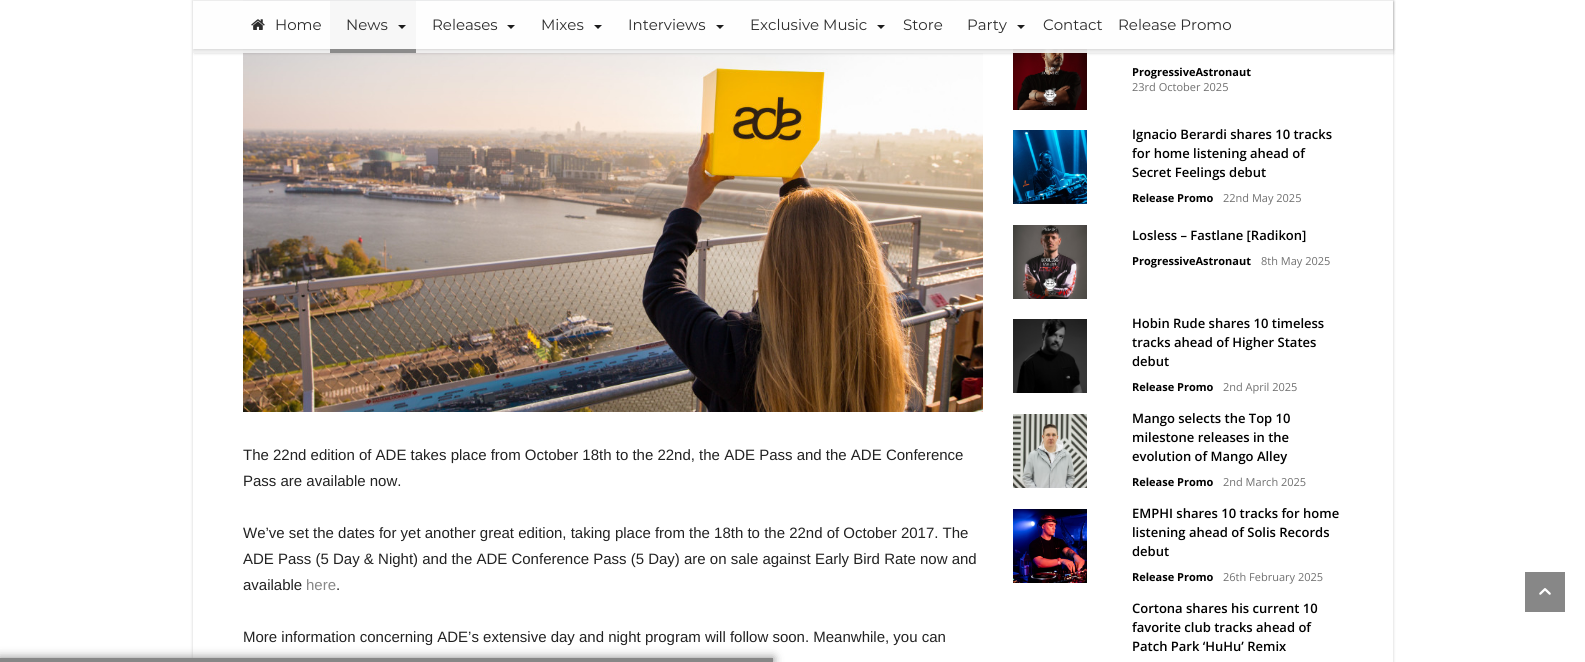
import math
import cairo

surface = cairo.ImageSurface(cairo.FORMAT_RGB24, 1585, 662)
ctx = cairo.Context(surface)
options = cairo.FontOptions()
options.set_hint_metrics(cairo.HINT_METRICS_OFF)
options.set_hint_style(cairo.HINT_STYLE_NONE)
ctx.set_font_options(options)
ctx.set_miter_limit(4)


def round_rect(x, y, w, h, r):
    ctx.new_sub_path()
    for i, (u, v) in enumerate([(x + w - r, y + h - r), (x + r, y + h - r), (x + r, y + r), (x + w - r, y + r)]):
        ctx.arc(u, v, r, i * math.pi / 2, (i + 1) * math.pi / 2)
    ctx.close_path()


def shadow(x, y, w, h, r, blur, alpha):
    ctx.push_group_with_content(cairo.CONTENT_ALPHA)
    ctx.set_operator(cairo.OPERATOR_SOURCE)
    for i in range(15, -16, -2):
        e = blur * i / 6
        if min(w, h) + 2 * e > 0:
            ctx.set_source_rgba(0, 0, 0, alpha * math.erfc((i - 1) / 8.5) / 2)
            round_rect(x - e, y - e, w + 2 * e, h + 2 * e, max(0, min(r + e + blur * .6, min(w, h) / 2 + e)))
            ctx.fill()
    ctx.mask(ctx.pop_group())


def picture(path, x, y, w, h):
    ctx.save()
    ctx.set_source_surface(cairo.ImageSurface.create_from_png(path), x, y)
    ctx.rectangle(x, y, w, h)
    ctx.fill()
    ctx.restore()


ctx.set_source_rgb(1, 1, 1)
ctx.paint()
ctx.save()
ctx.set_fill_rule(cairo.FILL_RULE_EVEN_ODD)
ctx.new_path()
ctx.move_to(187, 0)
ctx.line_to(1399, 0)
ctx.line_to(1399, 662)
ctx.line_to(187, 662)
ctx.close_path()
ctx.move_to(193, -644)
ctx.line_to(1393, -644)
ctx.line_to(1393, 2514)
ctx.line_to(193, 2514)
ctx.close_path()
ctx.clip()
ctx.set_source_rgb(0, 0, 0)
shadow(193, -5, 1200, 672, 0, 1.5, 0.2)
ctx.restore()
picture("img2.png", 243, 0, 740, 412)
picture("img3.png", 1013, 0, 74, 16)
picture("img4.png", 1013, 36, 74, 74)
ctx.save()
ctx.set_fill_rule(cairo.FILL_RULE_EVEN_ODD)
ctx.new_path()
ctx.move_to(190, 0)
ctx.line_to(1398, 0)
ctx.line_to(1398, 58)
ctx.line_to(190, 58)
ctx.close_path()
ctx.move_to(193, 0)
ctx.line_to(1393, 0)
ctx.line_to(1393, 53)
ctx.line_to(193, 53)
ctx.close_path()
ctx.clip()
ctx.set_source_rgb(0, 0, 0)
shadow(194, 1, 1200, 53, 0, 1, 0.1)
ctx.restore()
ctx.set_source_rgba(0.941, 0.941, 0.941, 0.95)
ctx.rectangle(193, 0, 1200, 53)
ctx.fill()
ctx.rectangle(1013, 0, 74, 1)
ctx.fill()
ctx.save()
ctx.set_fill_rule(cairo.FILL_RULE_EVEN_ODD)
ctx.new_path()
ctx.move_to(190, 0)
ctx.line_to(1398, 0)
ctx.line_to(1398, 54)
ctx.line_to(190, 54)
ctx.close_path()
ctx.move_to(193, 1)
ctx.line_to(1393, 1)
ctx.line_to(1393, 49)
ctx.line_to(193, 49)
ctx.close_path()
ctx.clip()
ctx.set_source_rgb(0, 0, 0)
shadow(194, 2, 1200, 48, 0, 1, 0.1)
ctx.restore()
ctx.set_source_rgba(1, 1, 1, 0.95)
ctx.rectangle(193, 1, 1200, 48)
ctx.fill()
picture("img1.png", 251, 19, 14, 11)
ctx.select_font_face("Montserrat")
ctx.set_font_size(15)
ctx.set_source_rgb(0.176, 0.176, 0.176)
ctx.move_to(275, 30)
ctx.show_text("Home")
ctx.set_source_rgb(0.965, 0.965, 0.965)
ctx.rectangle(330, 1, 86, 48)
ctx.fill()
ctx.set_source_rgb(0.176, 0.176, 0.176)
ctx.move_to(346, 30)
ctx.show_text("News")
ctx.set_source_rgb(0.106, 0.106, 0.106)
ctx.new_path()
ctx.move_to(398, 25)
ctx.line_to(406, 25)
ctx.line_to(402, 29)
ctx.close_path()
ctx.fill()
ctx.set_source_rgba(0.529, 0.529, 0.529, 0.95)
ctx.rectangle(330, 49, 86, 4)
ctx.fill()
ctx.set_source_rgb(0.176, 0.176, 0.176)
ctx.move_to(432, 30)
ctx.show_text("Releases")
ctx.set_source_rgb(0.114, 0.114, 0.114)
ctx.new_path()
ctx.move_to(507, 25)
ctx.line_to(515, 25)
ctx.line_to(511, 29)
ctx.close_path()
ctx.fill()
ctx.set_source_rgb(0.176, 0.176, 0.176)
ctx.move_to(541, 30)
ctx.show_text("Mixes")
ctx.set_source_rgb(0.106, 0.106, 0.11)
ctx.new_path()
ctx.move_to(594, 25)
ctx.line_to(602, 25)
ctx.line_to(598, 29)
ctx.close_path()
ctx.fill()
ctx.set_source_rgb(0.176, 0.176, 0.176)
ctx.move_to(628, 30)
ctx.show_text("Interviews")
ctx.set_source_rgb(0.114, 0.114, 0.114)
ctx.new_path()
ctx.move_to(716, 25)
ctx.line_to(724, 25)
ctx.line_to(720, 29)
ctx.close_path()
ctx.fill()
ctx.set_source_rgb(0.176, 0.176, 0.176)
ctx.move_to(750, 30)
ctx.show_text("Exclusive Music")
ctx.set_source_rgb(0.11, 0.11, 0.11)
ctx.new_path()
ctx.move_to(877, 25)
ctx.line_to(885, 25)
ctx.line_to(881, 29)
ctx.close_path()
ctx.fill()
ctx.set_source_rgb(0.176, 0.176, 0.176)
ctx.move_to(903, 30)
ctx.show_text("Store")
ctx.move_to(967, 30)
ctx.show_text("Party")
ctx.set_source_rgb(0.114, 0.114, 0.114)
ctx.new_path()
ctx.move_to(1017, 25)
ctx.line_to(1025, 25)
ctx.line_to(1021, 29)
ctx.close_path()
ctx.fill()
ctx.set_source_rgb(0.176, 0.176, 0.176)
ctx.move_to(1043, 30)
ctx.show_text("Contact")
ctx.move_to(1118, 30)
ctx.show_text("Release Promo")
ctx.select_font_face("Liberation Sans")
ctx.set_source_rgb(0.133, 0.133, 0.133)
ctx.move_to(243, 460)
ctx.show_text("The 22nd edition of ADE takes place from October 18th to the 22nd, the ADE Pass and the ADE Conference")
ctx.move_to(243, 486)
ctx.show_text("Pass are available now.")
ctx.move_to(243, 538)
ctx.show_text("We’ve set the dates for yet another great edition, taking place from the 18th to the 22nd of October 2017. The")
ctx.move_to(243, 564)
ctx.show_text("ADE Pass (5 Day & Night) and the ADE Conference Pass (5 Day) are on sale against Early Bird Rate now and")
ctx.move_to(243, 590)
ctx.show_text("available")
ctx.set_source_rgb(0.529, 0.529, 0.529)
ctx.move_to(306, 590)
ctx.show_text("here")
ctx.set_source_rgb(0.133, 0.133, 0.133)
ctx.move_to(336, 590)
ctx.show_text(".")
ctx.move_to(243, 642)
ctx.show_text("More information concerning ADE’s extensive day and night program will follow soon. Meanwhile, you can")
ctx.select_font_face("Open Sans", cairo.FONT_SLANT_NORMAL, cairo.FONT_WEIGHT_BOLD)
ctx.set_font_size(11)
ctx.set_source_rgb(0, 0, 0)
ctx.move_to(1132, 76)
ctx.show_text("ProgressiveAstronaut")
ctx.select_font_face("Open Sans")
ctx.set_source_rgb(0.439, 0.439, 0.439)
ctx.move_to(1132, 91)
ctx.show_text("23rd October 2025")
picture("img5.png", 1013, 130, 74, 74)
ctx.select_font_face("Open Sans SemiBold")
ctx.set_font_size(13)
ctx.set_source_rgb(0, 0, 0)
ctx.move_to(1132, 139)
ctx.show_text("Ignacio Berardi shares 10 tracks")
ctx.move_to(1132, 158)
ctx.show_text("for home listening ahead of")
ctx.move_to(1132, 177)
ctx.show_text("Secret Feelings debut")
ctx.select_font_face("Open Sans", cairo.FONT_SLANT_NORMAL, cairo.FONT_WEIGHT_BOLD)
ctx.set_font_size(11)
ctx.move_to(1132, 202)
ctx.show_text("Release Promo")
ctx.select_font_face("Open Sans")
ctx.set_source_rgb(0.439, 0.439, 0.439)
ctx.move_to(1223, 202)
ctx.show_text("22nd May 2025")
picture("img6.png", 1013, 225, 74, 74)
ctx.select_font_face("Open Sans SemiBold")
ctx.set_font_size(13)
ctx.set_source_rgb(0, 0, 0)
ctx.move_to(1132, 240)
ctx.show_text("Losless – Fastlane [Radikon]")
ctx.select_font_face("Open Sans", cairo.FONT_SLANT_NORMAL, cairo.FONT_WEIGHT_BOLD)
ctx.set_font_size(11)
ctx.move_to(1132, 265)
ctx.show_text("ProgressiveAstronaut")
ctx.select_font_face("Open Sans")
ctx.set_source_rgb(0.439, 0.439, 0.439)
ctx.move_to(1261, 265)
ctx.show_text("8th May 2025")
picture("img7.png", 1013, 319, 74, 74)
ctx.select_font_face("Open Sans SemiBold")
ctx.set_font_size(13)
ctx.set_source_rgb(0, 0, 0)
ctx.move_to(1132, 328)
ctx.show_text("Hobin Rude shares 10 timeless")
ctx.move_to(1132, 347)
ctx.show_text("tracks ahead of Higher States")
ctx.move_to(1132, 366)
ctx.show_text("debut")
ctx.select_font_face("Open Sans", cairo.FONT_SLANT_NORMAL, cairo.FONT_WEIGHT_BOLD)
ctx.set_font_size(11)
ctx.move_to(1132, 391)
ctx.show_text("Release Promo")
ctx.select_font_face("Open Sans")
ctx.set_source_rgb(0.439, 0.439, 0.439)
ctx.move_to(1223, 391)
ctx.show_text("2nd April 2025")
picture("img8.png", 1013, 414, 74, 74)
ctx.select_font_face("Open Sans SemiBold")
ctx.set_font_size(13)
ctx.set_source_rgb(0, 0, 0)
ctx.move_to(1132, 423)
ctx.show_text("Mango selects the Top 10")
ctx.move_to(1132, 442)
ctx.show_text("milestone releases in the")
ctx.move_to(1132, 461)
ctx.show_text("evolution of Mango Alley")
ctx.select_font_face("Open Sans", cairo.FONT_SLANT_NORMAL, cairo.FONT_WEIGHT_BOLD)
ctx.set_font_size(11)
ctx.move_to(1132, 486)
ctx.show_text("Release Promo")
ctx.select_font_face("Open Sans")
ctx.set_source_rgb(0.439, 0.439, 0.439)
ctx.move_to(1223, 486)
ctx.show_text("2nd March 2025")
picture("img9.png", 1013, 509, 74, 74)
ctx.select_font_face("Open Sans SemiBold")
ctx.set_font_size(13)
ctx.set_source_rgb(0, 0, 0)
ctx.move_to(1132, 518)
ctx.show_text("EMPHI shares 10 tracks for home")
ctx.move_to(1132, 537)
ctx.show_text("listening ahead of Solis Records")
ctx.move_to(1132, 556)
ctx.show_text("debut")
ctx.select_font_face("Open Sans", cairo.FONT_SLANT_NORMAL, cairo.FONT_WEIGHT_BOLD)
ctx.set_font_size(11)
ctx.move_to(1132, 581)
ctx.show_text("Release Promo")
ctx.select_font_face("Open Sans")
ctx.set_source_rgb(0.439, 0.439, 0.439)
ctx.move_to(1223, 581)
ctx.show_text("26th February 2025")
ctx.select_font_face("Open Sans SemiBold")
ctx.set_font_size(13)
ctx.set_source_rgb(0, 0, 0)
ctx.move_to(1132, 613)
ctx.show_text("Cortona shares his current 10")
ctx.move_to(1132, 632)
ctx.show_text("favorite club tracks ahead of")
ctx.move_to(1132, 651)
ctx.show_text("Patch Park ‘HuHu’ Remix")
ctx.set_source_rgb(0.529, 0.529, 0.529)
ctx.rectangle(1525, 572, 40, 40)
ctx.fill()
picture("img10.png", 1539, 588, 12, 7)
ctx.set_source_rgb(0.529, 0.529, 0.529)
shadow(0, 658, 773, 4, 0, 5, 1)
ctx.set_source_rgb(0.529, 0.529, 0.529)
ctx.rectangle(0, 658, 773, 4)
ctx.fill()
surface.write_to_png("page.png")
